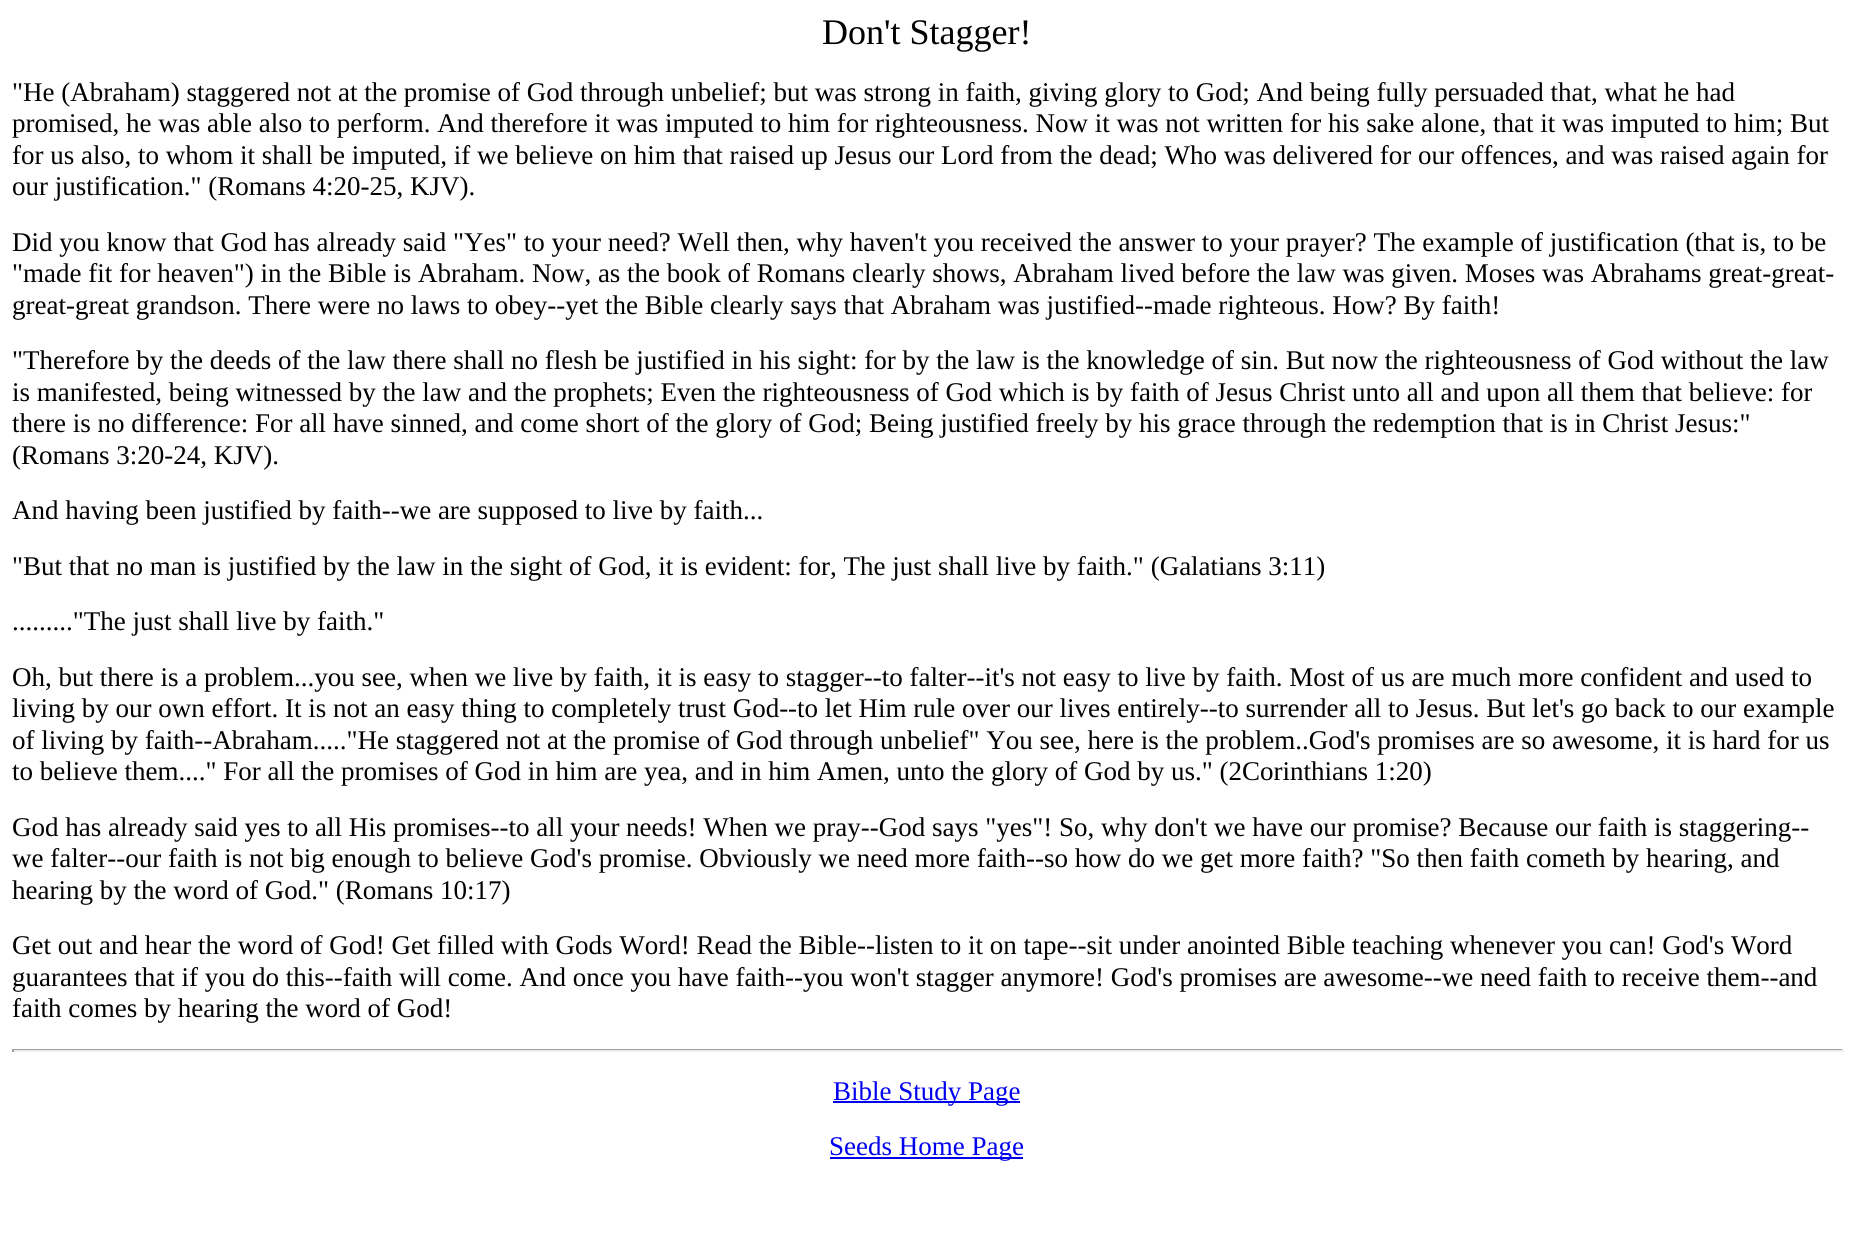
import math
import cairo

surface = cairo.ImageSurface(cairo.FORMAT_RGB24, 1852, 1242)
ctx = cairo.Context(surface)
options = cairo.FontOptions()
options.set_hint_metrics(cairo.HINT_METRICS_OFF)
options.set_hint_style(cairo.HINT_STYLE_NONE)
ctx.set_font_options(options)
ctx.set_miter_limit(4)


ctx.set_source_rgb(1, 1, 1)
ctx.paint()
ctx.select_font_face("Liberation Serif")
ctx.set_font_size(36)
ctx.set_source_rgb(0, 0, 0)
ctx.move_to(822, 44)
ctx.show_text("Don't Stagger!")
ctx.set_font_size(27)
ctx.move_to(12, 101)
ctx.show_text("\"He (Abraham) staggered not at the promise of God through unbelief; but was strong in faith, giving glory to God; And being fully persuaded that, what he had")
ctx.move_to(12, 132)
ctx.show_text("promised, he was able also to perform. And therefore it was imputed to him for righteousness. Now it was not written for his sake alone, that it was imputed to him; But")
ctx.move_to(12, 164)
ctx.show_text("for us also, to whom it shall be imputed, if we believe on him that raised up Jesus our Lord from the dead; Who was delivered for our offences, and was raised again for")
ctx.move_to(12, 195)
ctx.show_text("our justification.\" (Romans 4:20-25, KJV).")
ctx.move_to(12, 251)
ctx.show_text("Did you know that God has already said \"Yes\" to your need? Well then, why haven't you received the answer to your prayer? The example of justification (that is, to be")
ctx.move_to(12, 282)
ctx.show_text("\"made fit for heaven\") in the Bible is Abraham. Now, as the book of Romans clearly shows, Abraham lived before the law was given. Moses was Abrahams great-great-")
ctx.move_to(12, 314)
ctx.show_text("great-great grandson. There were no laws to obey--yet the Bible clearly says that Abraham was justified--made righteous. How? By faith!")
ctx.move_to(12, 369)
ctx.show_text("\"Therefore by the deeds of the law there shall no flesh be justified in his sight: for by the law is the knowledge of sin. But now the righteousness of God without the law")
ctx.move_to(12, 401)
ctx.show_text("is manifested, being witnessed by the law and the prophets; Even the righteousness of God which is by faith of Jesus Christ unto all and upon all them that believe: for")
ctx.move_to(12, 432)
ctx.show_text("there is no difference: For all have sinned, and come short of the glory of God; Being justified freely by his grace through the redemption that is in Christ Jesus:\"")
ctx.move_to(12, 464)
ctx.show_text("(Romans 3:20-24, KJV).")
ctx.move_to(12, 519)
ctx.show_text("And having been justified by faith--we are supposed to live by faith...")
ctx.move_to(12, 575)
ctx.show_text("\"But that no man is justified by the law in the sight of God, it is evident: for, The just shall live by faith.\" (Galatians 3:11)")
ctx.move_to(12, 630)
ctx.show_text(".........\"The just shall live by faith.\"")
ctx.move_to(12, 686)
ctx.show_text("Oh, but there is a problem...you see, when we live by faith, it is easy to stagger--to falter--it's not easy to live by faith. Most of us are much more confident and used to")
ctx.move_to(12, 717)
ctx.show_text("living by our own effort. It is not an easy thing to completely trust God--to let Him rule over our lives entirely--to surrender all to Jesus. But let's go back to our example")
ctx.move_to(12, 749)
ctx.show_text("of living by faith--Abraham.....\"He staggered not at the promise of God through unbelief\" You see, here is the problem..God's promises are so awesome, it is hard for us")
ctx.move_to(12, 780)
ctx.show_text("to believe them....\" For all the promises of God in him are yea, and in him Amen, unto the glory of God by us.\" (2Corinthians 1:20)")
ctx.move_to(12, 836)
ctx.show_text("God has already said yes to all His promises--to all your needs! When we pray--God says \"yes\"! So, why don't we have our promise? Because our faith is staggering--")
ctx.move_to(12, 867)
ctx.show_text("we falter--our faith is not big enough to believe God's promise. Obviously we need more faith--so how do we get more faith? \"So then faith cometh by hearing, and")
ctx.move_to(12, 899)
ctx.show_text("hearing by the word of God.\" (Romans 10:17)")
ctx.move_to(12, 954)
ctx.show_text("Get out and hear the word of God! Get filled with Gods Word! Read the Bible--listen to it on tape--sit under anointed Bible teaching whenever you can! God's Word")
ctx.move_to(12, 986)
ctx.show_text("guarantees that if you do this--faith will come. And once you have faith--you won't stagger anymore! God's promises are awesome--we need faith to receive them--and")
ctx.move_to(12, 1017)
ctx.show_text("faith comes by hearing the word of God!")
ctx.set_source_rgb(0.624, 0.624, 0.624)
ctx.rectangle(12, 1049, 1832, 1)
ctx.fill()
ctx.set_source_rgb(0.933, 0.933, 0.933)
ctx.rectangle(1842, 1049, 2, 3)
ctx.fill()
ctx.rectangle(12, 1050, 1832, 2)
ctx.fill()
ctx.set_source_rgb(0.624, 0.624, 0.624)
ctx.rectangle(12, 1049, 2, 3)
ctx.fill()
ctx.set_source_rgb(0, 0, 0.933)
ctx.rectangle(833, 1101, 187, 2)
ctx.fill()
ctx.move_to(833, 1100)
ctx.show_text("Bible Study Page")
ctx.rectangle(830, 1157, 193, 2)
ctx.fill()
ctx.move_to(829, 1155)
ctx.show_text("Seeds Home Page")
surface.write_to_png("page.png")
